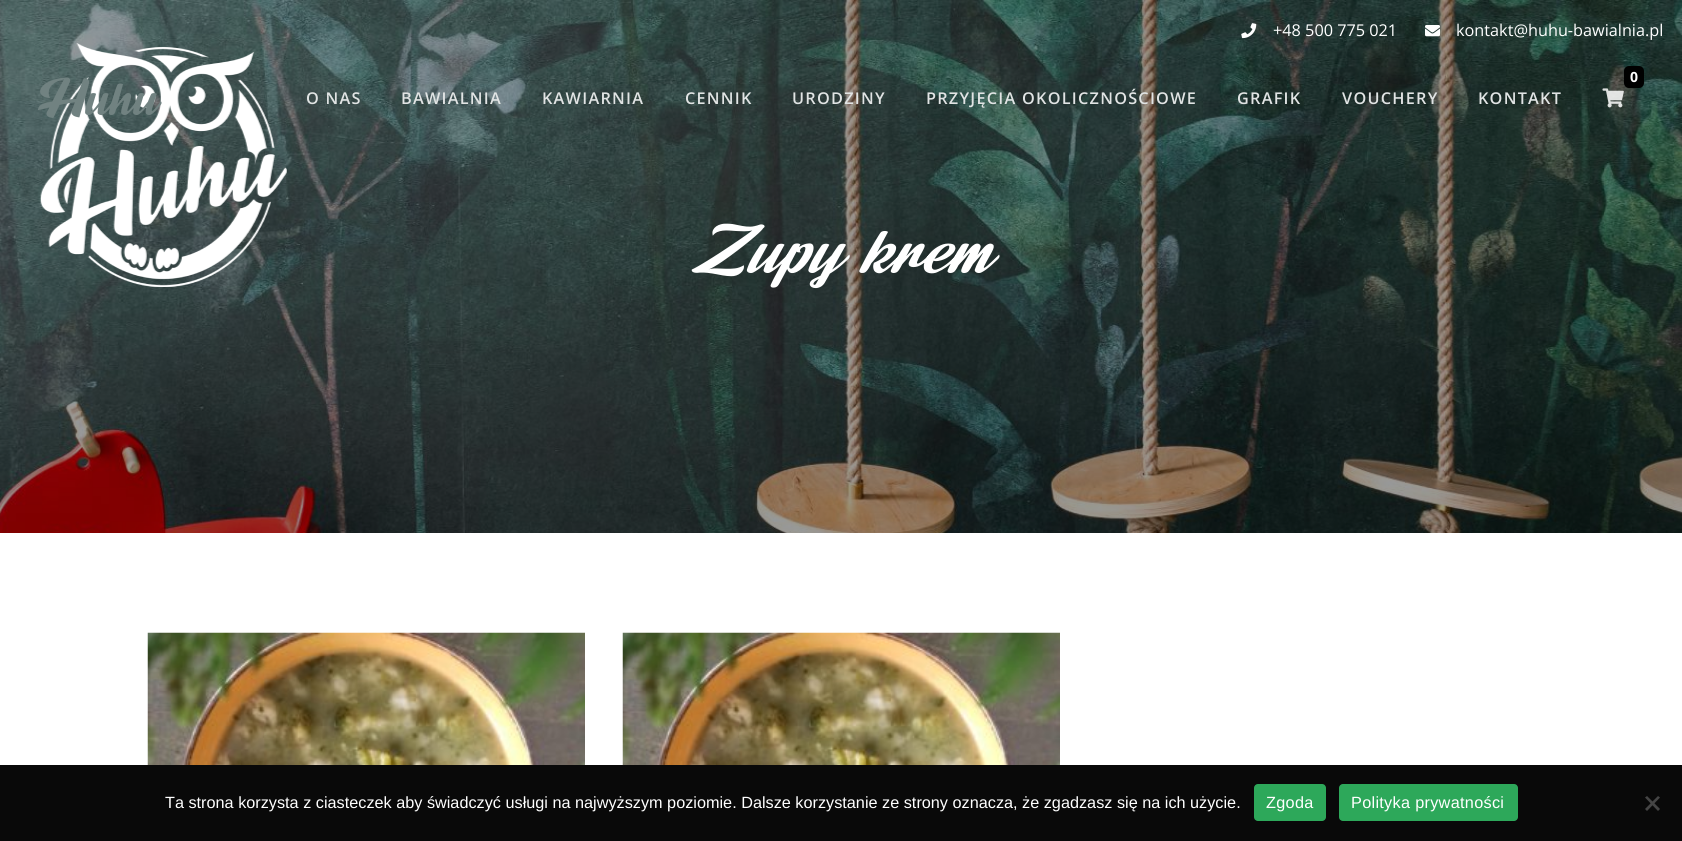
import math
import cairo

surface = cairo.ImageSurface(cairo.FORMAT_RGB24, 1682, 841)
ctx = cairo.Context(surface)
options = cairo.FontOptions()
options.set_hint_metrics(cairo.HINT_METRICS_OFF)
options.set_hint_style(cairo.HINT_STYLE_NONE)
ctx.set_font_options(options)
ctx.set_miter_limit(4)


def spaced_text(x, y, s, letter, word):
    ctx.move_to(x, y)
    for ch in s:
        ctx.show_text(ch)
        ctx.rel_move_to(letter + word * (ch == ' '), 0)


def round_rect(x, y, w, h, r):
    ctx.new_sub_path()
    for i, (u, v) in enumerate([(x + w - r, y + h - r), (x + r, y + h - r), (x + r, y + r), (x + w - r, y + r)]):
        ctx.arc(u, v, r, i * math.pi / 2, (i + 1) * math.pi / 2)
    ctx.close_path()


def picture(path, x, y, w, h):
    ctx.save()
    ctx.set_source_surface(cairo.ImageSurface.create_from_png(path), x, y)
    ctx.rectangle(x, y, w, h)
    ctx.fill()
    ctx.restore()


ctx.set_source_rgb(1, 1, 1)
ctx.paint()
picture("img5.png", 0, 0, 1682, 533)
picture("img1.png", 1241, 23, 16, 16)
ctx.select_font_face("Open Sans")
ctx.set_font_size(16.25)
ctx.set_source_rgb(1, 1, 1)
ctx.move_to(1273, 36)
ctx.show_text("+48 500 775 021")
picture("img2.png", 1425, 25, 15, 12)
ctx.move_to(1456, 36)
ctx.show_text("kontakt@huhu-bawialnia.pl")
picture("img3.png", 40, 43, 247, 244)
ctx.select_font_face("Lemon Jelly")
ctx.set_font_size(75)
ctx.set_source_rgb(0.443, 0.51, 0.506)
ctx.move_to(39, 115)
ctx.show_text("Huhu")
ctx.select_font_face("Open Sans SemiBold")
ctx.set_font_size(16.25)
ctx.set_source_rgb(0.882, 0.894, 0.894)
spaced_text(306, 104, "O NAS", 1.25, 0)
spaced_text(401, 104, "BAWIALNIA", 1.25, 0)
spaced_text(542, 104, "KAWIARNIA", 1.25, 0)
spaced_text(685, 104, "CENNIK", 1.25, 0)
spaced_text(792, 104, "URODZINY", 1.25, 0)
spaced_text(926, 104, "PRZYJĘCIA OKOLICZNOŚCIOWE", 1.25, 0)
spaced_text(1237, 104, "GRAFIK", 1.25, 0)
spaced_text(1342, 104, "VOUCHERY", 1.25, 0)
spaced_text(1478, 104, "KONTAKT", 1.25, 0)
ctx.set_source_rgb(0, 0, 0)
round_rect(1624, 66, 20, 22, 5)
ctx.fill()
ctx.select_font_face("Open Sans", cairo.FONT_SLANT_NORMAL, cairo.FONT_WEIGHT_BOLD)
ctx.set_font_size(14)
ctx.set_source_rgb(1, 1, 1)
ctx.move_to(1630, 82)
ctx.show_text("0")
picture("img4.png", 1602, 88, 22, 20)
ctx.select_font_face("Lemon Jelly", cairo.FONT_SLANT_ITALIC)
ctx.set_font_size(100)
ctx.move_to(691, 273)
ctx.show_text("Zupy krem")
picture("img6.png", 147, 632, 438, 133)
picture("img6.png", 622, 632, 438, 133)
ctx.set_source_rgb(0.039, 0.039, 0.039)
ctx.rectangle(0, 765, 1682, 76)
ctx.fill()
ctx.select_font_face("Liberation Sans")
ctx.set_font_size(16.25)
ctx.set_source_rgb(1, 1, 1)
ctx.move_to(165, 808)
ctx.show_text("Ta strona korzysta z ciasteczek aby świadczyć usługi na najwyższym poziomie. Dalsze korzystanie ze strony oznacza, że zgadzasz się na ich użycie.")
ctx.set_source_rgb(0.176, 0.659, 0.353)
round_rect(1254, 784, 72, 37, 4)
ctx.fill()
ctx.set_source_rgb(1, 1, 1)
spaced_text(1266, 808, "Zgoda", 0.3, 0)
ctx.set_source_rgb(0.176, 0.659, 0.353)
round_rect(1339, 784, 179, 37, 4)
ctx.fill()
ctx.set_source_rgb(1, 1, 1)
spaced_text(1351, 808, "Polityka prywatności", 0.3, 0)
ctx.set_source_rgb(0.271, 0.271, 0.271)
ctx.new_path()
ctx.move_to(1658, 796)
ctx.line_to(1660, 797.5)
ctx.line_to(1647, 811)
ctx.line_to(1645, 809)
ctx.close_path()
ctx.fill()
ctx.new_path()
ctx.move_to(1645, 797.5)
ctx.line_to(1647, 796)
ctx.line_to(1660, 809)
ctx.line_to(1658, 811)
ctx.close_path()
ctx.fill()
surface.write_to_png("page.png")
